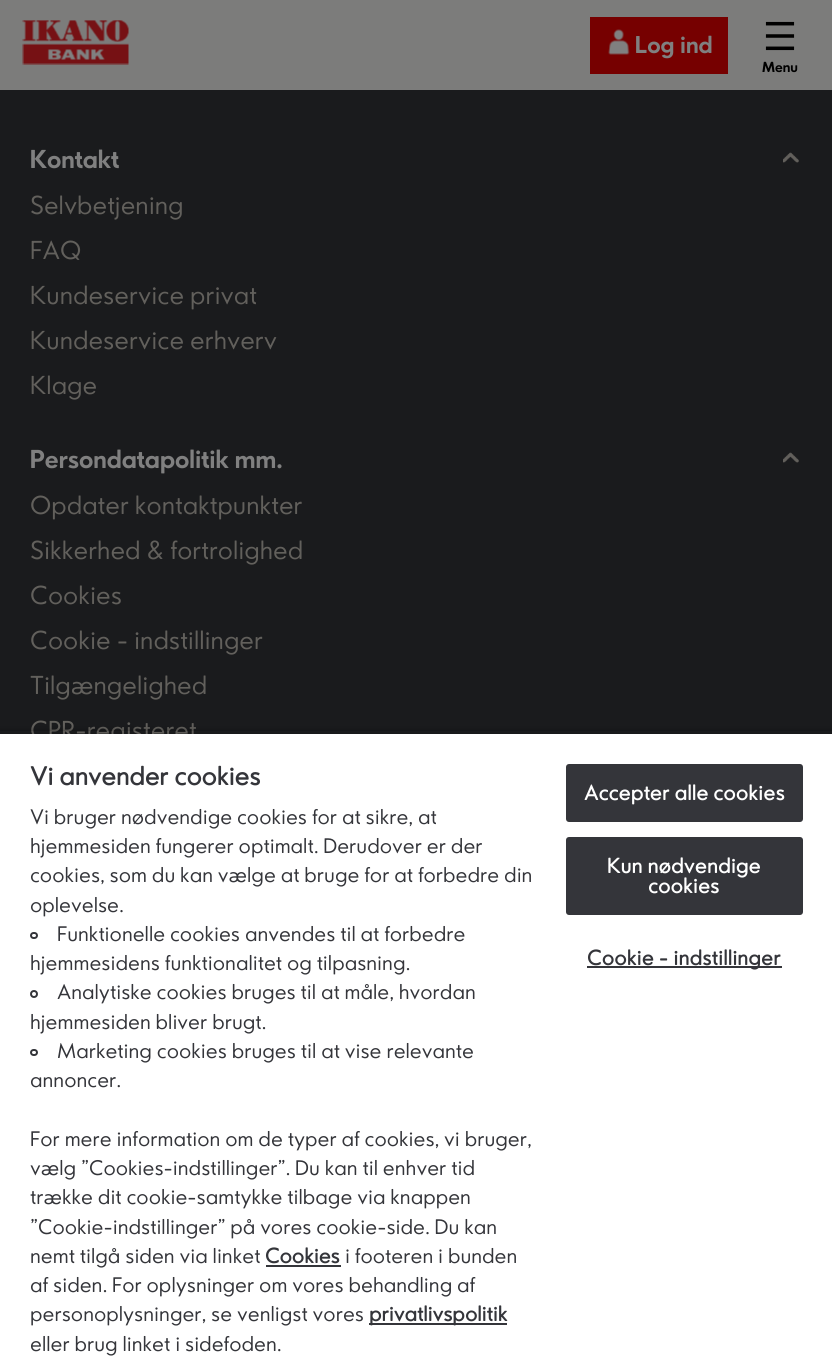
import math
import cairo

surface = cairo.ImageSurface(cairo.FORMAT_RGB24, 832, 1358)
ctx = cairo.Context(surface)
options = cairo.FontOptions()
options.set_hint_metrics(cairo.HINT_METRICS_OFF)
options.set_hint_style(cairo.HINT_STYLE_NONE)
ctx.set_font_options(options)
ctx.set_miter_limit(4)


def spaced_text(x, y, s, letter, word):
    ctx.move_to(x, y)
    for ch in s:
        ctx.show_text(ch)
        ctx.rel_move_to(letter + word * (ch == ' '), 0)


def round_rect(x, y, w, h, r):
    ctx.new_sub_path()
    for i, (u, v) in enumerate([(x + w - r, y + h - r), (x + r, y + h - r), (x + r, y + r), (x + w - r, y + r)]):
        ctx.arc(u, v, r, i * math.pi / 2, (i + 1) * math.pi / 2)
    ctx.close_path()


def shadow(x, y, w, h, r, blur, alpha):
    ctx.push_group_with_content(cairo.CONTENT_ALPHA)
    ctx.set_operator(cairo.OPERATOR_SOURCE)
    for i in range(15, -16, -2):
        e = blur * i / 6
        if min(w, h) + 2 * e > 0:
            ctx.set_source_rgba(0, 0, 0, alpha * math.erfc((i - 1) / 8.5) / 2)
            round_rect(x - e, y - e, w + 2 * e, h + 2 * e, max(0, min(r + e + blur * .6, min(w, h) / 2 + e)))
            ctx.fill()
    ctx.mask(ctx.pop_group())


def picture(path, x, y, w, h):
    ctx.save()
    ctx.set_source_surface(cairo.ImageSurface.create_from_png(path), x, y)
    ctx.rectangle(x, y, w, h)
    ctx.fill()
    ctx.restore()


ctx.set_source_rgb(0.102, 0.106, 0.114)
ctx.paint()
ctx.set_source_rgb(0.486, 0.486, 0.482)
ctx.rectangle(0, 0, 832, 90)
ctx.fill()
picture("img1.png", 22, 20, 107, 45)
ctx.set_source_rgb(0.463, 0, 0)
ctx.rectangle(590, 17, 138, 57)
ctx.fill()
picture("img2.png", 608, 29, 22, 26)
ctx.select_font_face("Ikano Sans", cairo.FONT_SLANT_NORMAL, cairo.FONT_WEIGHT_BOLD)
ctx.set_font_size(22.5)
ctx.set_source_rgb(0.502, 0.502, 0.502)
ctx.move_to(635, 53)
ctx.show_text("Log ind")
picture("img3.png", 765, 21, 30, 30)
ctx.set_font_size(13.5)
ctx.set_source_rgb(0, 0, 0)
ctx.move_to(762, 72)
ctx.show_text("Menu")
ctx.set_font_size(24)
ctx.set_source_rgb(0.502, 0.502, 0.502)
ctx.move_to(30, 168)
ctx.show_text("Kontakt")
picture("img4.png", 783, 152, 16, 11)
ctx.select_font_face("Ikano Sans Light")
ctx.set_source_rgb(0.384, 0.376, 0.361)
ctx.move_to(30, 214)
ctx.show_text("Selvbetjening")
ctx.move_to(30, 259)
ctx.show_text("FAQ")
ctx.move_to(30, 304)
ctx.show_text("Kundeservice privat")
ctx.move_to(30, 349)
ctx.show_text("Kundeservice erhverv")
ctx.move_to(30, 394)
ctx.show_text("Klage")
ctx.select_font_face("Ikano Sans", cairo.FONT_SLANT_NORMAL, cairo.FONT_WEIGHT_BOLD)
ctx.set_source_rgb(0.502, 0.502, 0.502)
ctx.move_to(30, 468)
ctx.show_text("Persondatapolitik mm.")
picture("img4.png", 783, 452, 16, 11)
ctx.select_font_face("Ikano Sans Light")
ctx.set_source_rgb(0.384, 0.376, 0.361)
ctx.move_to(30, 514)
ctx.show_text("Opdater kontaktpunkter")
ctx.move_to(30, 559)
ctx.show_text("Sikkerhed & fortrolighed")
ctx.move_to(30, 604)
ctx.show_text("Cookies")
ctx.move_to(30, 649)
ctx.show_text("Cookie - indstillinger")
ctx.move_to(30, 694)
ctx.show_text("Tilgængelighed")
ctx.move_to(30, 739)
ctx.show_text("CPR-registeret")
ctx.save()
ctx.rectangle(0, 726, 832, 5)
ctx.clip()
ctx.set_source_rgb(0, 0, 0)
shadow(0, 731, 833, 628, 0, 3, 0.35)
ctx.restore()
ctx.set_source_rgb(0, 0, 0)
shadow(0, 734, 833, 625, 0, 3, 0.2)
ctx.set_source_rgb(1, 1, 1)
ctx.rectangle(0, 734, 832, 624)
ctx.fill()
ctx.select_font_face("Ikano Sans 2", cairo.FONT_SLANT_NORMAL, cairo.FONT_WEIGHT_BOLD)
ctx.set_source_rgb(0.204, 0.208, 0.227)
ctx.move_to(30, 785)
ctx.show_text("Vi anvender cookies")
ctx.select_font_face("Ikano Sans Light")
ctx.set_font_size(19.5)
ctx.move_to(30, 824)
ctx.show_text("Vi bruger nødvendige cookies for at sikre, at")
ctx.move_to(30, 853)
ctx.show_text("hjemmesiden fungerer optimalt. Derudover er der")
ctx.move_to(30, 882)
ctx.show_text("cookies, som du kan vælge at bruge for at forbedre din")
ctx.move_to(30, 912)
ctx.show_text("oplevelse.")
round_rect(31, 933, 6, 5, 2.5)
ctx.stroke()
ctx.move_to(57, 941)
ctx.show_text("Funktionelle cookies anvendes til at forbedre")
ctx.move_to(30, 970)
ctx.show_text("hjemmesidens funktionalitet og tilpasning.")
ctx.new_path()
ctx.arc(34, 994, 3, 0, 2 * math.pi)
ctx.stroke()
ctx.move_to(57, 999)
ctx.show_text("Analytiske cookies bruges til at måle, hvordan")
ctx.move_to(30, 1029)
ctx.show_text("hjemmesiden bliver brugt.")
round_rect(31, 1050, 6, 5, 2.5)
ctx.stroke()
ctx.move_to(57, 1058)
ctx.show_text("Marketing cookies bruges til at vise relevante")
ctx.move_to(30, 1087)
ctx.show_text("annoncer.")
ctx.move_to(30, 1146)
ctx.show_text("For mere information om de typer af cookies, vi bruger,")
ctx.move_to(30, 1175)
ctx.show_text("vælg \"Cookies-indstillinger\". Du kan til enhver tid")
ctx.move_to(30, 1204)
ctx.show_text("trække dit cookie-samtykke tilbage via knappen")
ctx.move_to(30, 1234)
ctx.show_text("\"Cookie-indstillinger\" på vores cookie-side. Du kan")
ctx.move_to(30, 1263)
ctx.show_text("nemt tilgå siden via linket")
ctx.select_font_face("Ikano Sans 2", cairo.FONT_SLANT_NORMAL, cairo.FONT_WEIGHT_BOLD)
ctx.move_to(265, 1263)
ctx.show_text("Cookies")
ctx.rectangle(266, 1265, 75, 2)
ctx.fill()
ctx.select_font_face("Ikano Sans Light")
ctx.move_to(345, 1263)
ctx.show_text("i footeren i bunden")
ctx.move_to(30, 1292)
ctx.show_text("af siden. For oplysninger om vores behandling af")
ctx.move_to(30, 1321)
ctx.show_text("personoplysninger, se venligst vores")
ctx.rectangle(369, 1323, 138, 2)
ctx.fill()
ctx.select_font_face("Ikano Sans 2", cairo.FONT_SLANT_NORMAL, cairo.FONT_WEIGHT_BOLD)
ctx.move_to(369, 1321)
ctx.show_text("privatlivspolitik")
ctx.select_font_face("Ikano Sans Light")
ctx.move_to(30, 1351)
ctx.show_text("eller brug linket i sidefoden.")
round_rect(567, 765, 235, 56, 2)
ctx.fill_preserve()
ctx.stroke()
ctx.select_font_face("Ikano Sans 2", cairo.FONT_SLANT_NORMAL, cairo.FONT_WEIGHT_BOLD)
ctx.set_source_rgb(1, 1, 1)
spaced_text(584, 800, "Accepter alle cookies", 0.2, 0)
ctx.set_source_rgb(0.204, 0.208, 0.227)
round_rect(567, 838, 235, 76, 2)
ctx.fill_preserve()
ctx.stroke()
ctx.set_source_rgb(1, 1, 1)
spaced_text(607, 873, "Kun nødvendige", 0.2, 0)
spaced_text(648, 893, "cookies", 0.2, 0)
ctx.set_source_rgb(0.204, 0.208, 0.227)
ctx.rectangle(587, 966, 195, 2)
ctx.fill()
spaced_text(587, 965, "Cookie - indstillinger", 0.2, 0)
surface.write_to_png("page.png")
